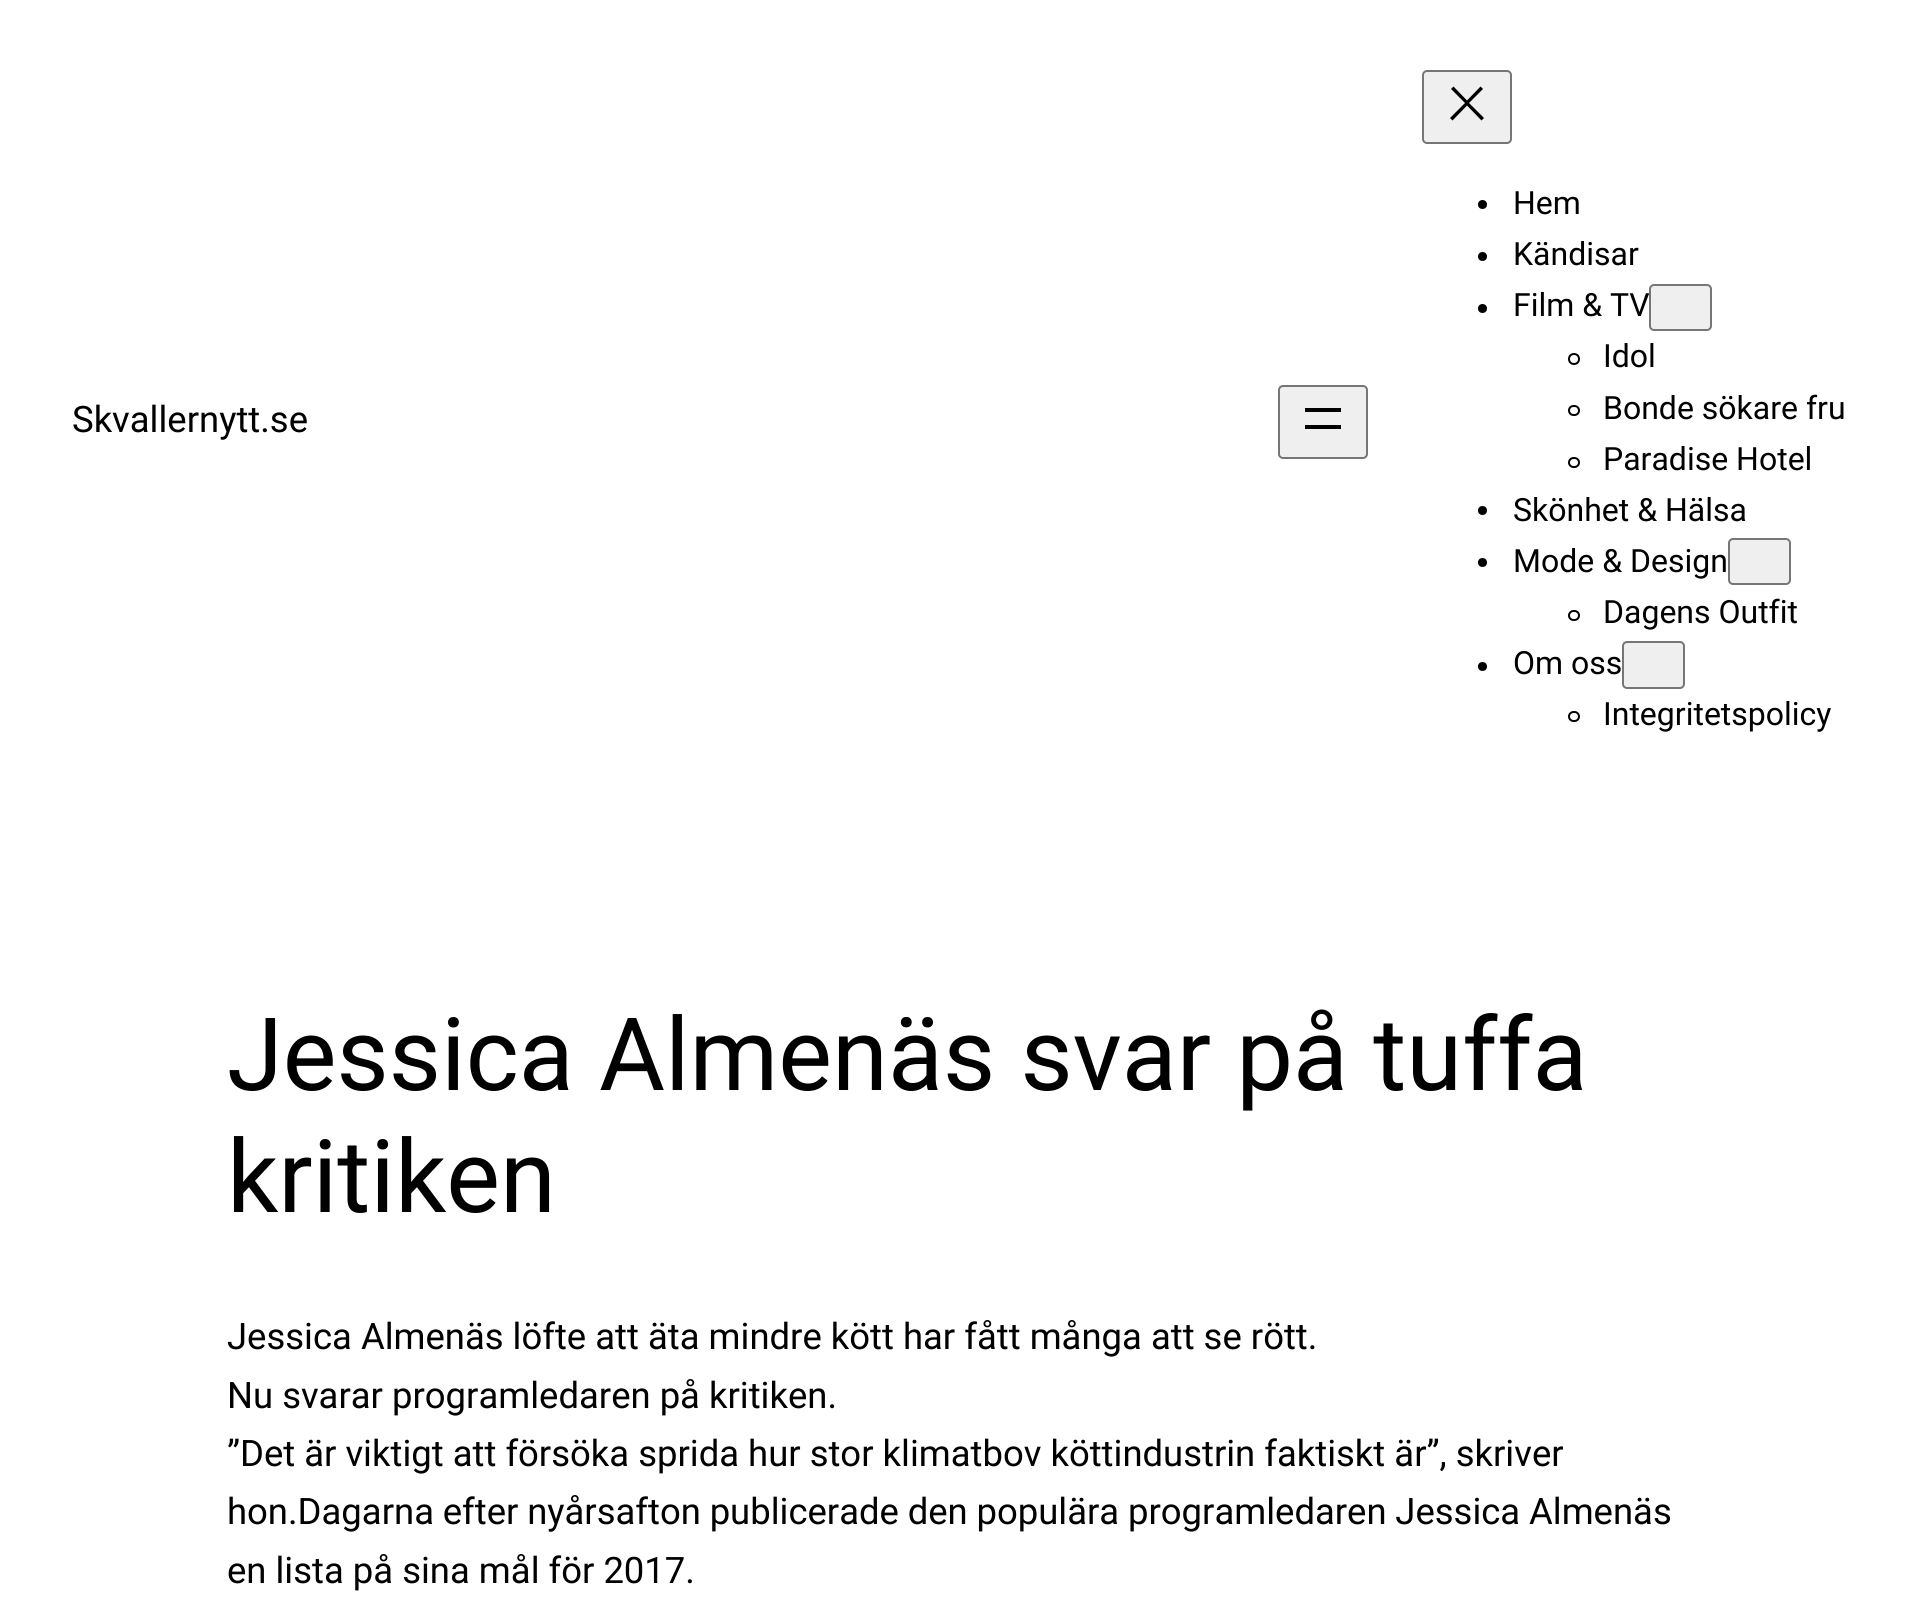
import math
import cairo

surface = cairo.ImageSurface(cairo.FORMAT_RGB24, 1917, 1610)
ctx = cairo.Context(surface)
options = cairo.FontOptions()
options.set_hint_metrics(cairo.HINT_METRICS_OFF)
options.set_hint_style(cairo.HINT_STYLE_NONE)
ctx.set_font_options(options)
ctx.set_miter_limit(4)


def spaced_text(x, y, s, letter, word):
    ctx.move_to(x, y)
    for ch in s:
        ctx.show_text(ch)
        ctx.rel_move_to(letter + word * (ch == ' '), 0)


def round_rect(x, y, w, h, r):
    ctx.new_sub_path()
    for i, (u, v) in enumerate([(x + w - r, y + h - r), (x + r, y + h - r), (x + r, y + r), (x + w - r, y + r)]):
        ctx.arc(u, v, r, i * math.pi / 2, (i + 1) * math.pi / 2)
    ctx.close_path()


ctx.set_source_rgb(1, 1, 1)
ctx.paint()
ctx.select_font_face("Roboto")
ctx.set_font_size(36.45)
ctx.set_source_rgb(0, 0, 0)
ctx.move_to(72, 432)
ctx.show_text("Skvallernytt.se")
ctx.set_source_rgb(0.937, 0.937, 0.937)
round_rect(1279, 386, 88, 72, 4)
ctx.fill_preserve()
ctx.set_source_rgb(0.463, 0.463, 0.463)
ctx.stroke()
ctx.set_source_rgb(0, 0, 0)
ctx.rectangle(1305, 408, 36, 4)
ctx.fill()
ctx.rectangle(1305, 425, 36, 4)
ctx.fill()
ctx.set_source_rgb(0.937, 0.937, 0.937)
round_rect(1423, 71, 88, 72, 4)
ctx.fill_preserve()
ctx.set_source_rgb(0.463, 0.463, 0.463)
ctx.stroke()
ctx.set_source_rgb(0, 0, 0)
ctx.new_path()
ctx.move_to(1469, 103)
ctx.line_to(1483, 89)
ctx.line_to(1480.5, 86.5)
ctx.line_to(1467, 100.5)
ctx.line_to(1453.5, 86.5)
ctx.line_to(1451, 89)
ctx.line_to(1465, 103)
ctx.line_to(1450, 118)
ctx.line_to(1452.5, 120.5)
ctx.line_to(1467, 105.5)
ctx.line_to(1481.5, 120.5)
ctx.line_to(1484, 118)
ctx.close_path()
ctx.fill()
ctx.arc(1482.5, 204.5, 4.5, 0, 2 * math.pi)
ctx.fill()
ctx.set_font_size(32)
ctx.move_to(1513, 214)
ctx.show_text("Hem")
ctx.new_path()
ctx.arc(1482.5, 256.5, 4.5, 0, 2 * math.pi)
ctx.fill()
ctx.move_to(1513, 265)
ctx.show_text("Kändisar")
ctx.new_path()
ctx.arc(1482.5, 308.5, 4.5, 0, 2 * math.pi)
ctx.fill()
ctx.move_to(1513, 316)
ctx.show_text("Film & TV")
ctx.set_source_rgb(0.937, 0.937, 0.937)
round_rect(1650, 285, 61, 45, 4)
ctx.fill_preserve()
ctx.set_source_rgb(0.463, 0.463, 0.463)
ctx.stroke()
ctx.arc(1574, 359, 5, 0, 2 * math.pi)
ctx.set_source_rgb(0, 0, 0)
ctx.stroke()
ctx.move_to(1603, 367)
ctx.show_text("Idol")
round_rect(1569, 406, 10, 9, 4.5)
ctx.stroke()
ctx.move_to(1603, 419)
ctx.show_text("Bonde sökare fru")
round_rect(1569, 458, 10, 9, 4.5)
ctx.stroke()
ctx.move_to(1603, 470)
ctx.show_text("Paradise Hotel")
ctx.new_path()
ctx.arc(1482.5, 510.5, 4.5, 0, 2 * math.pi)
ctx.fill()
ctx.move_to(1513, 521)
ctx.show_text("Skönhet & Hälsa")
ctx.new_path()
ctx.arc(1482.5, 562.5, 4.5, 0, 2 * math.pi)
ctx.fill()
ctx.move_to(1513, 572)
ctx.show_text("Mode & Design")
ctx.set_source_rgb(0.937, 0.937, 0.937)
round_rect(1729, 539, 61, 45, 4)
ctx.fill_preserve()
ctx.set_source_rgb(0.463, 0.463, 0.463)
ctx.stroke()
round_rect(1569, 611, 10, 9, 4.5)
ctx.set_source_rgb(0, 0, 0)
ctx.stroke()
ctx.move_to(1603, 623)
ctx.show_text("Dagens Outfit")
ctx.new_path()
ctx.arc(1482.5, 666.5, 4.5, 0, 2 * math.pi)
ctx.fill()
ctx.move_to(1513, 674)
ctx.show_text("Om oss")
ctx.set_source_rgb(0.937, 0.937, 0.937)
round_rect(1623, 642, 61, 46, 4)
ctx.fill_preserve()
ctx.set_source_rgb(0.463, 0.463, 0.463)
ctx.stroke()
round_rect(1569, 712, 10, 9, 4.5)
ctx.set_source_rgb(0, 0, 0)
ctx.stroke()
ctx.move_to(1603, 725)
ctx.show_text("Integritetspolicy")
ctx.set_font_size(101.25)
ctx.move_to(227, 1090)
ctx.show_text("Jessica Almenäs svar på tuffa")
ctx.move_to(227, 1212)
ctx.show_text("kritiken")
ctx.set_font_size(36.45)
ctx.move_to(227, 1349)
ctx.show_text("Jessica Almenäs löfte att äta mindre kött har fått många att se rött.")
ctx.move_to(227, 1408)
ctx.show_text("Nu svarar programledaren på kritiken.")
ctx.move_to(227, 1466)
ctx.show_text("”Det är viktigt att försöka sprida hur stor klimatbov köttindustrin faktiskt är”, skriver")
spaced_text(227, 1524, "hon.Dagarna efter nyårsafton publicerade den populära programledaren Jessica Almenäs", 0, -0.25)
ctx.move_to(227, 1583)
ctx.show_text("en lista på sina mål för 2017.")
surface.write_to_png("page.png")
